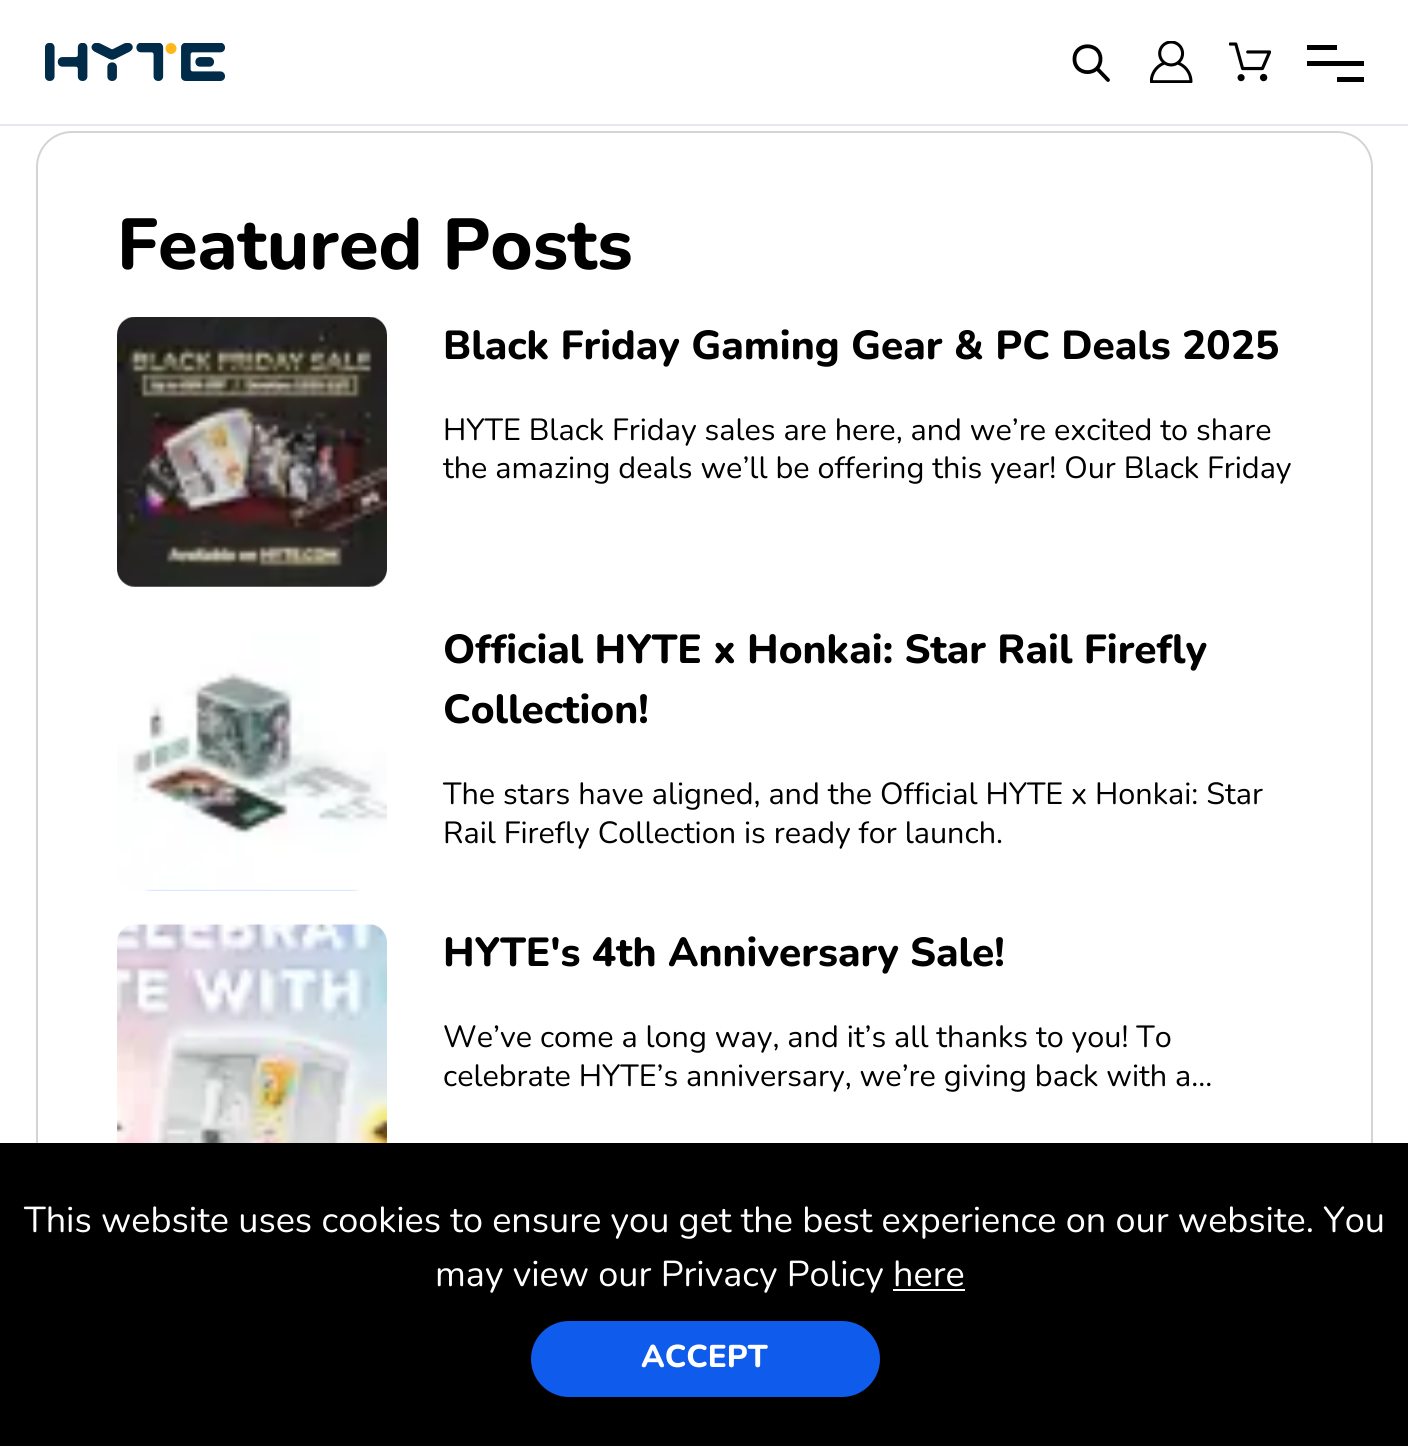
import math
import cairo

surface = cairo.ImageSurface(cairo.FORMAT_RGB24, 1408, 1446)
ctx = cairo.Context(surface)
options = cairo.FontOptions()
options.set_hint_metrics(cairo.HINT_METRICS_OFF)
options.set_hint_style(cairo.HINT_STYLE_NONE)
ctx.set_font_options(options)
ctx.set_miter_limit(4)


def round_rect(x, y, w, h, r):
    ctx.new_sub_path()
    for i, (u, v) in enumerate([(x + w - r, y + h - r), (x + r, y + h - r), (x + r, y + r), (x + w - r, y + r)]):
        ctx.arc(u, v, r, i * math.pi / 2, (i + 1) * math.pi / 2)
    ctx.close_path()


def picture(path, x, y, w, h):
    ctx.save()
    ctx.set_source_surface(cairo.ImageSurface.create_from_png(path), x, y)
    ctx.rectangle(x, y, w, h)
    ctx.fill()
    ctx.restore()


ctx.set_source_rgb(1, 1, 1)
ctx.paint()
ctx.set_source_rgb(0.898, 0.906, 0.922)
ctx.rectangle(0, 124, 1408, 2)
ctx.fill()
picture("img1.png", 45, 43, 180, 38)
ctx.new_path()
ctx.move_to(1108, 80)
ctx.line_to(1097, 68.5)
ctx.move_to(1100.5, 59)
ctx.curve_to(1100.5, 76.5, 1074.5, 76.5, 1074.5, 59)
ctx.curve_to(1074.5, 42, 1100.5, 42, 1100.5, 59)
ctx.close_path()
ctx.set_source_rgb(0, 0, 0)
ctx.set_line_width(3.8)
ctx.set_line_cap(cairo.LINE_CAP_ROUND)
ctx.set_line_join(cairo.LINE_JOIN_ROUND)
ctx.stroke()
picture("img2.png", 1150, 41, 43, 42)
picture("img3.png", 1229, 42, 42, 40)
ctx.rectangle(1307, 45, 30, 5)
ctx.fill()
ctx.rectangle(1307, 61, 57, 5)
ctx.fill()
ctx.rectangle(1337, 77, 27, 5)
ctx.fill()
round_rect(37, 132, 1335, 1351, 35)
ctx.set_source_rgb(0.839, 0.827, 0.82)
ctx.set_line_width(2)
ctx.set_line_cap(cairo.LINE_CAP_BUTT)
ctx.set_line_join(cairo.LINE_JOIN_MITER)
ctx.stroke()
ctx.select_font_face("Nunito ExtraBold")
ctx.set_font_size(72)
ctx.set_source_rgb(0, 0, 0)
ctx.move_to(117, 269)
ctx.show_text("Featured Posts")
picture("img4.png", 117, 317, 270, 270)
ctx.set_font_size(40.5)
ctx.move_to(443, 359)
ctx.show_text("Black Friday Gaming Gear & PC Deals 2025")
ctx.select_font_face("Nunito")
ctx.set_font_size(30.6)
ctx.move_to(443, 440)
ctx.show_text("HYTE Black Friday sales are here, and we’re excited to share")
ctx.move_to(443, 478)
ctx.show_text("the amazing deals we’ll be offering this year! Our Black Friday")
ctx.set_source_rgb(0.749, 0.859, 0.996)
round_rect(117, 621, 270, 270, 36)
ctx.fill()
picture("img5.png", 117, 621, 270, 270)
ctx.select_font_face("Nunito ExtraBold")
ctx.set_font_size(40.5)
ctx.set_source_rgb(0, 0, 0)
ctx.move_to(443, 663)
ctx.show_text("Official HYTE x Honkai: Star Rail Firefly")
ctx.move_to(443, 723)
ctx.show_text("Collection!")
ctx.select_font_face("Nunito")
ctx.set_font_size(30.6)
ctx.move_to(443, 804)
ctx.show_text("The stars have aligned, and the Official HYTE x Honkai: Star")
ctx.move_to(443, 843)
ctx.show_text("Rail Firefly Collection is ready for launch.")
picture("img6.png", 117, 923, 270, 220)
ctx.select_font_face("Nunito ExtraBold")
ctx.set_font_size(40.5)
ctx.move_to(443, 966)
ctx.show_text("HYTE's 4th Anniversary Sale!")
ctx.select_font_face("Nunito")
ctx.set_font_size(30.6)
ctx.move_to(443, 1047)
ctx.show_text("We’ve come a long way, and it’s all thanks to you! To")
ctx.move_to(443, 1086)
ctx.show_text("celebrate HYTE’s anniversary, we’re giving back with a…")
ctx.rectangle(0, 1143, 1408, 303)
ctx.fill()
ctx.set_font_size(36)
ctx.set_source_rgb(1, 1, 1)
ctx.move_to(24, 1232)
ctx.show_text("This website uses cookies to ensure you get the best experience on our website. You")
ctx.move_to(435, 1286)
ctx.show_text("may view our Privacy Policy here")
ctx.rectangle(893, 1289, 72, 2)
ctx.fill()
ctx.set_source_rgb(0.059, 0.357, 0.918)
round_rect(531, 1321, 349, 76, 38)
ctx.fill()
ctx.select_font_face("Nunito ExtraBold")
ctx.set_font_size(31.5)
ctx.set_source_rgb(1, 1, 1)
ctx.move_to(641, 1367)
ctx.show_text("ACCEPT")
surface.write_to_png("page.png")
